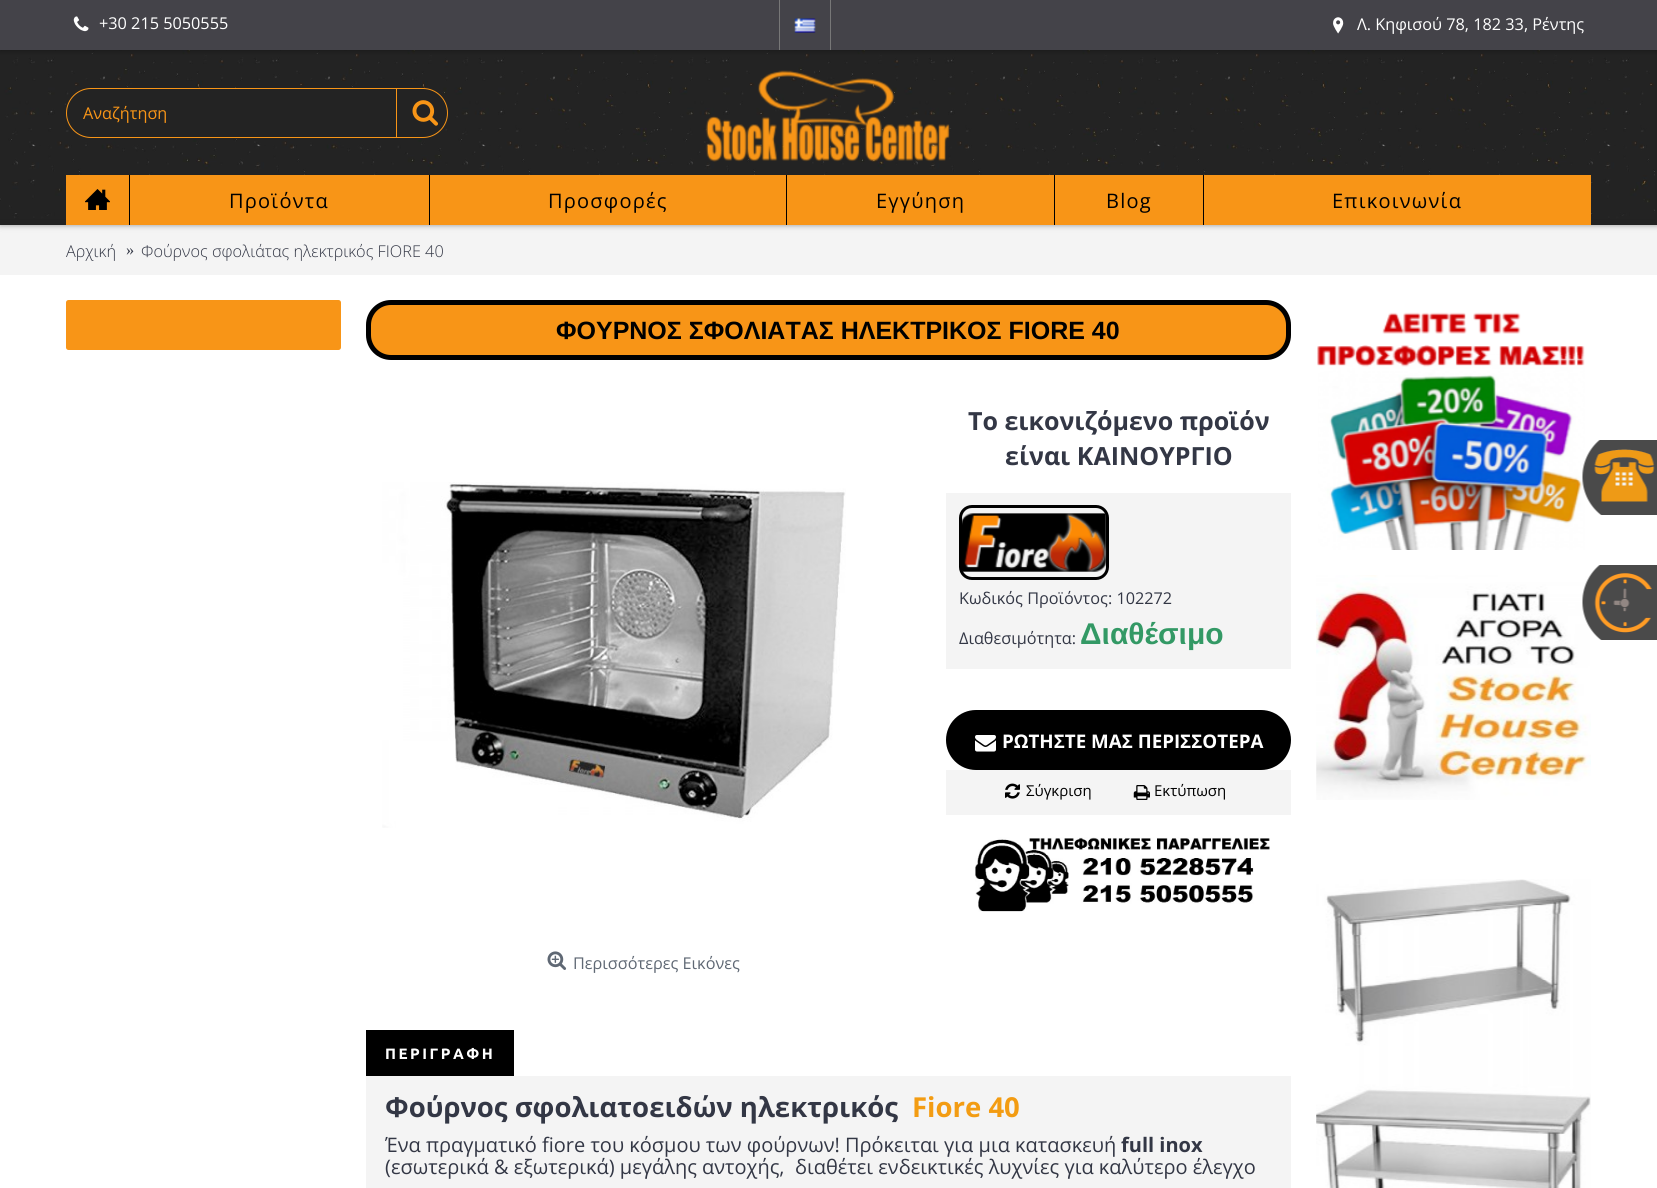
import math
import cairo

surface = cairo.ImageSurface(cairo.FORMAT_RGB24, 1657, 1188)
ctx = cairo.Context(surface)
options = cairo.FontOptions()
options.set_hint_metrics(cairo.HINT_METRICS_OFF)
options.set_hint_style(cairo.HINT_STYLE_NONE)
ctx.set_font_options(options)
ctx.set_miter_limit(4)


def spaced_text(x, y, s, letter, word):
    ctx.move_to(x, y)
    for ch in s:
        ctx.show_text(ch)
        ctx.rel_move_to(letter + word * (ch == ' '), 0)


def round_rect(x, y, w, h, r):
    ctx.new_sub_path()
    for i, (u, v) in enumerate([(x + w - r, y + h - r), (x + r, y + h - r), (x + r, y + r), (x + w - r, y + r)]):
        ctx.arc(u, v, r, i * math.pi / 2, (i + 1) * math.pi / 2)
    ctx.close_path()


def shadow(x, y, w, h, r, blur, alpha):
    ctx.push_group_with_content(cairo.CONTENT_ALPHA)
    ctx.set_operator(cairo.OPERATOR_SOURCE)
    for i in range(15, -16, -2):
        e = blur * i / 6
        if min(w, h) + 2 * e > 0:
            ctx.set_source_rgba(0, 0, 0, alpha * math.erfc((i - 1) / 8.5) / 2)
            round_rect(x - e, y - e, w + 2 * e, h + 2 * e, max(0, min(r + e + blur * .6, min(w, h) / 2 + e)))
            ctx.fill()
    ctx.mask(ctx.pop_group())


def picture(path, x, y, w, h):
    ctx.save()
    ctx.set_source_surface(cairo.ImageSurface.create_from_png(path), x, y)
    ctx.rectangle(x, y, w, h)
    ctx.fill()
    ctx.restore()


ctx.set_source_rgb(1, 1, 1)
ctx.paint()
ctx.set_source_rgb(0.957, 0.957, 0.957)
ctx.rectangle(0, 225, 1657, 50)
ctx.fill()
ctx.set_source_rgb(0, 0, 0)
shadow(0, 0, 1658, 225, 0, 3, 0.4)
ctx.set_source_rgb(0.133, 0.133, 0.133)
ctx.rectangle(0, 50, 1657, 175)
ctx.fill()
picture("img1.png", 0, 50, 1655, 169)
ctx.set_source_rgb(0, 0, 0)
shadow(0, 0, 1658, 50, 0, 3, 0.4)
ctx.set_source_rgb(0.267, 0.263, 0.286)
ctx.rectangle(0, 0, 1657, 50)
ctx.fill()
picture("img2.png", 73, 16, 16, 16)
ctx.select_font_face("Open Sans")
ctx.set_font_size(16.25)
ctx.set_source_rgb(1, 1, 1)
ctx.move_to(99, 29)
ctx.show_text("+30 215 5050555")
ctx.set_source_rgb(0.467, 0.467, 0.467)
ctx.rectangle(830, 0, 1, 50)
ctx.fill()
ctx.rectangle(779, 0, 1, 50)
ctx.fill()
picture("img3.png", 794, 18, 22, 15)
picture("img4.png", 1333, 17, 11, 17)
ctx.set_source_rgb(1, 1, 1)
ctx.move_to(1357, 30)
ctx.show_text("Λ. Κηφισού 78, 182 33, Ρέντης")
ctx.set_source_rgb(0.137, 0.137, 0.137)
round_rect(66.5, 88.5, 381, 49, 24.5)
ctx.fill_preserve()
ctx.set_source_rgb(0.969, 0.584, 0.09)
ctx.set_line_width(1)
ctx.stroke()
ctx.move_to(83, 119)
ctx.show_text("Αναζήτηση")
ctx.rectangle(396, 88, 1, 50)
ctx.fill()
picture("img5.png", 412, 100, 26, 26)
picture("img6.png", 705, 70, 245, 92)
ctx.rectangle(66, 175, 1525, 50)
ctx.fill()
picture("img7.png", 85, 189, 25, 21)
ctx.set_source_rgb(0, 0, 0)
ctx.rectangle(129, 175, 1, 50)
ctx.fill()
ctx.set_font_size(20)
spaced_text(229, 208, "Προϊόντα", 1.25, 0)
ctx.rectangle(429, 175, 1, 50)
ctx.fill()
spaced_text(548, 208, "Προσφορές", 1.25, 0)
ctx.rectangle(786, 175, 1, 50)
ctx.fill()
spaced_text(876, 208, "Εγγύηση", 1.25, 0)
ctx.rectangle(1054, 175, 1, 50)
ctx.fill()
spaced_text(1106, 208, "Blog", 1.25, 0)
ctx.rectangle(1203, 175, 1, 50)
ctx.fill()
spaced_text(1332, 208, "Επικοινωνία", 1.25, 0)
ctx.select_font_face("Open Sans Light")
ctx.set_font_size(16.25)
ctx.set_source_rgb(0.2, 0.216, 0.271)
ctx.move_to(66, 257)
ctx.show_text("Αρχική")
ctx.select_font_face("Liberation Serif")
ctx.move_to(126, 255)
ctx.show_text("»")
ctx.select_font_face("Open Sans Light")
ctx.move_to(141, 257)
ctx.show_text("Φούρνος σφολιάτας ηλεκτρικός FIORE 40")
ctx.set_source_rgb(0.969, 0.584, 0.09)
round_rect(66, 300, 275, 50, 2.5)
ctx.fill()
round_rect(368.5, 302.5, 920, 55, 22.5)
ctx.fill_preserve()
ctx.set_source_rgb(0, 0, 0)
ctx.set_line_width(5)
ctx.stroke()
ctx.select_font_face("Liberation Sans", cairo.FONT_SLANT_NORMAL, cairo.FONT_WEIGHT_BOLD)
ctx.set_font_size(25)
ctx.move_to(556, 339)
ctx.show_text("ΦΟΥΡΝΟΣ ΣΦΟΛΙΑΤΑΣ ΗΛΕΚΤΡΙΚΟΣ FIORE 40")
ctx.select_font_face("Open Sans", cairo.FONT_SLANT_NORMAL, cairo.FONT_WEIGHT_BOLD)
ctx.set_source_rgb(0.2, 0.216, 0.271)
ctx.move_to(968, 430)
ctx.show_text("Το εικονιζόμενο προϊόν")
ctx.move_to(1005, 465)
ctx.show_text("είναι ΚΑΙΝΟΥΡΓΙΟ")
ctx.set_source_rgb(0.957, 0.957, 0.957)
ctx.rectangle(946, 493, 345, 176)
ctx.fill()
round_rect(960.5, 506.5, 147, 72, 11.5)
ctx.set_source_rgb(0, 0, 0)
ctx.set_line_width(3)
ctx.stroke()
picture("img8.png", 962, 513, 145, 59)
ctx.select_font_face("Open Sans")
ctx.set_font_size(16.25)
ctx.set_source_rgb(0.2, 0.216, 0.271)
ctx.move_to(959, 604)
ctx.show_text("Κωδικός Προϊόντος: 102272")
ctx.move_to(959, 644)
ctx.show_text("Διαθεσιμότητα:")
ctx.select_font_face("Liberation Sans", cairo.FONT_SLANT_NORMAL, cairo.FONT_WEIGHT_BOLD)
ctx.set_font_size(30)
ctx.set_source_rgb(0.2, 0.6, 0.396)
ctx.move_to(1080, 644)
ctx.show_text("Διαθέσιμο")
ctx.set_source_rgb(0, 0, 0)
round_rect(946, 710, 345, 60, 30)
ctx.fill()
picture("img9.png", 975, 735, 21, 17)
ctx.select_font_face("Open Sans", cairo.FONT_SLANT_NORMAL, cairo.FONT_WEIGHT_BOLD)
ctx.set_font_size(18.75)
ctx.set_source_rgb(1, 1, 1)
ctx.move_to(1002, 748)
ctx.show_text("ΡΩΤΗΣΤΕ ΜΑΣ ΠΕΡΙΣΣΟΤΕΡΑ")
ctx.set_source_rgb(0.957, 0.957, 0.957)
ctx.rectangle(946, 770, 345, 45)
ctx.fill()
picture("img10.png", 1005, 783, 15, 16)
ctx.select_font_face("Open Sans")
ctx.set_font_size(15)
ctx.set_source_rgb(0, 0, 0)
ctx.move_to(1026, 796)
ctx.show_text("Σύγκριση")
picture("img11.png", 1133, 785, 17, 15)
ctx.move_to(1154, 796)
ctx.show_text("Εκτύπωση")
picture("img12.png", 975, 837, 295, 75)
picture("img13.png", 382, 482, 464, 346)
picture("img14.png", 547, 951, 20, 19)
ctx.set_font_size(16.25)
ctx.set_source_rgb(0.373, 0.408, 0.455)
ctx.move_to(573, 969)
ctx.show_text("Περισσότερες Εικόνες")
ctx.set_source_rgb(0, 0, 0)
ctx.rectangle(366, 1030, 148, 46)
ctx.fill()
ctx.select_font_face("Ubuntu", cairo.FONT_SLANT_NORMAL, cairo.FONT_WEIGHT_BOLD)
ctx.set_font_size(15)
ctx.set_source_rgb(1, 1, 1)
spaced_text(385, 1059, "ΠΕΡΙΓΡΑΦΗ", 2.5, 0)
ctx.set_source_rgb(0.957, 0.957, 0.957)
ctx.rectangle(366, 1076, 925, 112)
ctx.fill()
ctx.select_font_face("Open Sans", cairo.FONT_SLANT_NORMAL, cairo.FONT_WEIGHT_BOLD)
ctx.set_font_size(27.5)
ctx.set_source_rgb(0.2, 0.216, 0.271)
ctx.move_to(385, 1117)
ctx.show_text("Φούρνος σφολιατοειδών ηλεκτρικός")
ctx.set_source_rgb(0.953, 0.612, 0.071)
ctx.move_to(912, 1117)
ctx.show_text("Fiore 40")
ctx.select_font_face("Open Sans")
ctx.set_font_size(20)
ctx.set_source_rgb(0.2, 0.216, 0.271)
ctx.move_to(385, 1152)
ctx.show_text("Ένα πραγματικό fiore του κόσμου των φούρνων! Πρόκειται για μια κατασκευή")
ctx.select_font_face("Open Sans", cairo.FONT_SLANT_NORMAL, cairo.FONT_WEIGHT_BOLD)
ctx.move_to(1121, 1152)
ctx.show_text("full inox")
ctx.select_font_face("Open Sans")
ctx.move_to(385, 1174)
ctx.show_text("(εσωτερικά & εξωτερικά) μεγάλης αντοχής,  διαθέτει ενδεικτικές λυχνίες για καλύτερο έλεγχο")
picture("img15.png", 1317, 312, 268, 238)
picture("img16.png", 1316, 575, 275, 225)
picture("img17.png", 1316, 879, 275, 309)
picture("img18.png", 1582, 440, 75, 75)
picture("img19.png", 1582, 565, 75, 75)
surface.write_to_png("page.png")
